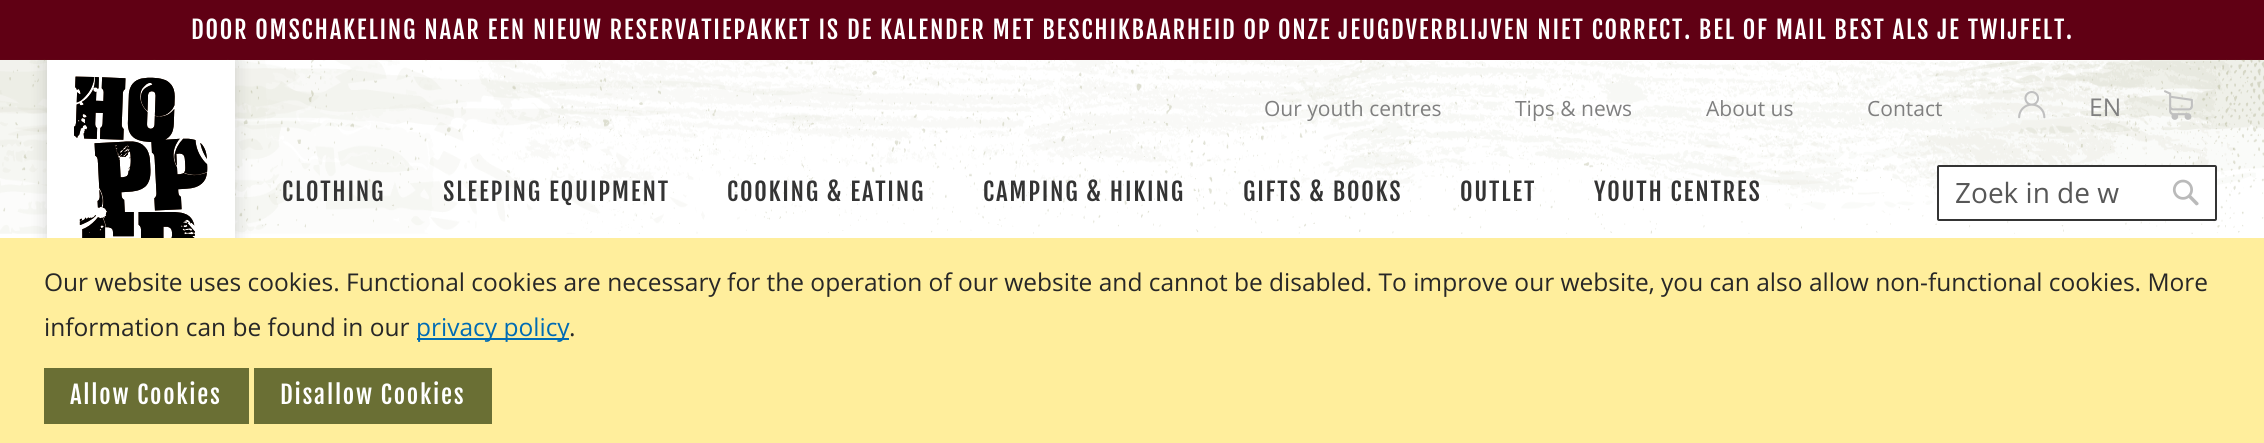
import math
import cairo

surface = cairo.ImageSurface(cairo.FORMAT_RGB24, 2264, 443)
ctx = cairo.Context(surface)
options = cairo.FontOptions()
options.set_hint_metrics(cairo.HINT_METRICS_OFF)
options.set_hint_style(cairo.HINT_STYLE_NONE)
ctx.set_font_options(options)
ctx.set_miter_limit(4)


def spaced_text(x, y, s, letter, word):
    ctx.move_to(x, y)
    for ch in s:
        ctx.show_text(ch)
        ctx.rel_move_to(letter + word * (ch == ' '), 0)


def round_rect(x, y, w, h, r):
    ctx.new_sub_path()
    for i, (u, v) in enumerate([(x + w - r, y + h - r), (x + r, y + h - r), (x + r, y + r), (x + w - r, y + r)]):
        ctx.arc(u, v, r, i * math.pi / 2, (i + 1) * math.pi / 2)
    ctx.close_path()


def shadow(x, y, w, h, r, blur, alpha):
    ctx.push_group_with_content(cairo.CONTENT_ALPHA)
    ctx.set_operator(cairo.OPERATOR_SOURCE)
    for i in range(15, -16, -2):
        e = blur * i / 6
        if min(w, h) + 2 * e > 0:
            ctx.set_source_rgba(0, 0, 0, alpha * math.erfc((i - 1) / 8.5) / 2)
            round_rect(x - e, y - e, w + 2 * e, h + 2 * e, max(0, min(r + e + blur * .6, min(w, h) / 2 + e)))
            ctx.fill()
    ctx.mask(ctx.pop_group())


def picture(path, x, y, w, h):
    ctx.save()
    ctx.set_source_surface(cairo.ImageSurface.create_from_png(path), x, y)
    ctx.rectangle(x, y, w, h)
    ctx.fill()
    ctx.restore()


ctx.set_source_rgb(1, 1, 1)
ctx.paint()
ctx.set_source_rgb(0.376, 0, 0.082)
ctx.rectangle(0, 0, 2264, 60)
ctx.fill()
ctx.select_font_face("Fjalla One")
ctx.set_font_size(24.5)
ctx.set_source_rgb(1, 1, 1)
spaced_text(191, 39, "DOOR OMSCHAKELING NAAR EEN NIEUW RESERVATIEPAKKET IS DE KALENDER MET BESCHIKBAARHEID OP ONZE JEUGDVERBLIJVEN NIET CORRECT. BEL OF MAIL BEST ALS JE TWIJFELT.", 1.75, 0)
picture("img1.png", 0, 59, 2264, 175)
ctx.select_font_face("Open Sans")
ctx.set_font_size(21)
ctx.set_source_rgb(0.502, 0.502, 0.502)
ctx.move_to(1264, 116)
ctx.show_text("Our youth centres")
ctx.move_to(1515, 116)
ctx.show_text("Tips & news")
ctx.move_to(1706, 116)
ctx.show_text("About us")
ctx.move_to(1867, 116)
ctx.show_text("Contact")
picture("img2.png", 2018, 91, 28, 28)
ctx.select_font_face("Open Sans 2")
ctx.set_font_size(24.5)
ctx.move_to(2089, 116)
ctx.show_text("EN")
picture("img3.png", 2164, 90, 29, 30)
ctx.save()
ctx.rectangle(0, 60, 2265, 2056)
ctx.clip()
ctx.set_source_rgb(0, 0, 0)
shadow(47, 60, 188, 262, 0, 9, 0.15)
ctx.restore()
ctx.set_source_rgb(1, 1, 1)
ctx.rectangle(47, 60, 188, 178)
ctx.fill()
picture("img4.png", 74, 76, 134, 162)
ctx.select_font_face("Fjalla One")
ctx.set_source_rgb(0.204, 0.204, 0.204)
spaced_text(282, 201, "CLOTHING", 1.75, 0)
spaced_text(443, 201, "SLEEPING EQUIPMENT", 1.75, 0)
spaced_text(727, 201, "COOKING & EATING", 1.75, 0)
spaced_text(983, 201, "CAMPING & HIKING", 1.75, 0)
spaced_text(1243, 201, "GIFTS & BOOKS", 1.75, 0)
spaced_text(1460, 201, "OUTLET", 1.75, 0)
spaced_text(1594, 201, "YOUTH CENTRES", 1.75, 0)
ctx.set_source_rgb(1, 1, 1)
ctx.rectangle(1939, 167, 276, 50)
ctx.fill()
round_rect(1938, 166, 278, 54, 1)
ctx.set_source_rgb(0.204, 0.204, 0.204)
ctx.stroke()
ctx.select_font_face("Open Sans 2")
ctx.set_font_size(28)
ctx.set_source_rgb(0.341, 0.341, 0.341)
ctx.move_to(1955, 203)
ctx.show_text("Zoek in de w")
picture("img5.png", 2172, 179, 27, 27)
ctx.set_source_rgb(1, 0.933, 0.612)
ctx.rectangle(0, 238, 2264, 205)
ctx.fill()
ctx.select_font_face("Open Sans")
ctx.set_font_size(24.5)
ctx.set_source_rgb(0.153, 0.153, 0.153)
ctx.move_to(44, 291)
ctx.show_text("Our website uses cookies. Functional cookies are necessary for the operation of our website and cannot be disabled. To improve our website, you can also allow non-functional cookies. More")
ctx.move_to(44, 336)
ctx.show_text("information can be found in our")
ctx.set_source_rgb(0, 0.42, 0.706)
ctx.rectangle(417, 338, 152, 2)
ctx.fill()
ctx.move_to(416, 336)
ctx.show_text("privacy policy")
ctx.set_source_rgb(0.153, 0.153, 0.153)
ctx.move_to(569, 336)
ctx.show_text(".")
ctx.set_source_rgb(0.416, 0.435, 0.204)
ctx.rectangle(44, 368, 205, 56)
ctx.fill()
ctx.select_font_face("Fjalla One")
ctx.set_source_rgb(1, 1, 1)
spaced_text(70, 404, "Allow Cookies", 1.75, 0)
ctx.set_source_rgb(0.416, 0.435, 0.204)
ctx.rectangle(254, 368, 238, 56)
ctx.fill()
ctx.set_source_rgb(1, 1, 1)
spaced_text(280, 404, "Disallow Cookies", 1.75, 0)
surface.write_to_png("page.png")
